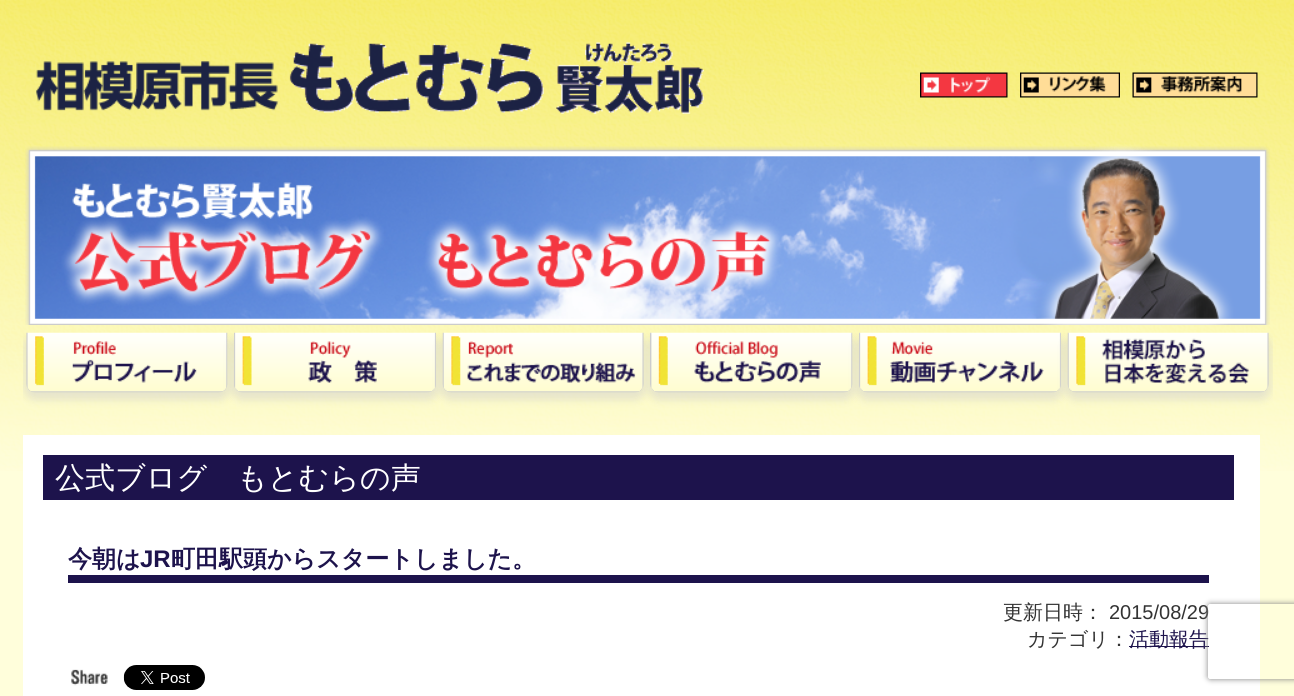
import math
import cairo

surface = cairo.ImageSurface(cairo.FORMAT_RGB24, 1294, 696)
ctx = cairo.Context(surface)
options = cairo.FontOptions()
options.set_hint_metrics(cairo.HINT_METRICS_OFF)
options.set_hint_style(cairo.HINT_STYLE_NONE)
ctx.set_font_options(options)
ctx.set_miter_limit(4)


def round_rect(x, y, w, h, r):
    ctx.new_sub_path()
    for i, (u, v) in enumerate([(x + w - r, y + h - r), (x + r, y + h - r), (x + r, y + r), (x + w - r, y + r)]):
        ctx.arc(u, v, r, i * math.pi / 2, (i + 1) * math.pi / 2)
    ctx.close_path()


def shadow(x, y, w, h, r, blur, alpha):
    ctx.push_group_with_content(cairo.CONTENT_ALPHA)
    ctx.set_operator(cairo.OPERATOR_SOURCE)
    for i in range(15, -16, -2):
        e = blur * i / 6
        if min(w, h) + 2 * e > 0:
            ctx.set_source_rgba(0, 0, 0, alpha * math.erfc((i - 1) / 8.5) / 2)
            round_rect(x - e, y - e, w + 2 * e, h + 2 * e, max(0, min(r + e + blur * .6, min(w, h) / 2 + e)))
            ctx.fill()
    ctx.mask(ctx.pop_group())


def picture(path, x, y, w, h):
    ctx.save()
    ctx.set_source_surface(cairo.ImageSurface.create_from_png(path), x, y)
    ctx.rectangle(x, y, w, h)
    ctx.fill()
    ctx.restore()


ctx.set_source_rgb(1, 0.996, 0.859)
ctx.paint()
picture("img1.png", 0, 0, 1294, 471)
picture("img2.png", 36, 42, 668, 72)
picture("img3.png", 920, 72, 88, 26)
picture("img4.png", 1020, 72, 100, 26)
picture("img5.png", 1132, 72, 126, 26)
picture("img6.png", 25, 144, 1245, 181)
ctx.save()
ctx.rectangle(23, 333, 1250, 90)
ctx.clip()
ctx.set_source_rgb(0.816, 0.816, 0.816)
shadow(24, 335, 206, 65, 11, 4, 0.5)
ctx.restore()
picture("img7.png", 26, 332, 202, 61)
ctx.save()
ctx.rectangle(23, 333, 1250, 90)
ctx.clip()
ctx.set_source_rgb(0.816, 0.816, 0.816)
shadow(231, 335, 208, 65, 11, 4, 0.5)
ctx.restore()
picture("img8.png", 234, 332, 202, 61)
ctx.save()
ctx.rectangle(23, 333, 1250, 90)
ctx.clip()
ctx.set_source_rgb(0.816, 0.816, 0.816)
shadow(440, 335, 206, 65, 11, 4, 0.5)
ctx.restore()
picture("img9.png", 442, 332, 202, 61)
ctx.save()
ctx.rectangle(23, 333, 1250, 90)
ctx.clip()
ctx.set_source_rgb(0.816, 0.816, 0.816)
shadow(648, 335, 207, 65, 11, 4, 0.5)
ctx.restore()
picture("img10.png", 650, 332, 203, 61)
ctx.save()
ctx.rectangle(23, 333, 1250, 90)
ctx.clip()
ctx.set_source_rgb(0.816, 0.816, 0.816)
shadow(856, 335, 208, 65, 11, 4, 0.5)
ctx.restore()
picture("img11.png", 859, 332, 202, 61)
ctx.save()
ctx.rectangle(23, 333, 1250, 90)
ctx.clip()
ctx.set_source_rgb(0.816, 0.816, 0.816)
shadow(1065, 335, 206, 65, 11, 4, 0.5)
ctx.restore()
picture("img12.png", 1067, 332, 202, 61)
ctx.set_source_rgb(1, 1, 1)
ctx.rectangle(23, 435, 1237, 261)
ctx.fill()
ctx.set_source_rgb(0.114, 0.075, 0.298)
ctx.rectangle(43, 455, 1191, 45)
ctx.fill()
ctx.select_font_face("WenQuanYi Zen Hei Medium")
ctx.set_font_size(30)
ctx.set_source_rgb(1, 1, 1)
ctx.move_to(55, 488)
ctx.show_text("公式ブログ　もとむらの声")
ctx.set_source_rgb(0.114, 0.075, 0.298)
ctx.rectangle(68, 575, 1141, 8)
ctx.fill()
ctx.select_font_face("WenQuanYi Zen Hei", cairo.FONT_SLANT_NORMAL, cairo.FONT_WEIGHT_BOLD)
ctx.set_font_size(24)
ctx.move_to(68, 567)
ctx.show_text("今朝は")
ctx.select_font_face("Liberation Sans", cairo.FONT_SLANT_NORMAL, cairo.FONT_WEIGHT_BOLD)
ctx.move_to(140, 567)
ctx.show_text("JR")
ctx.select_font_face("WenQuanYi Zen Hei", cairo.FONT_SLANT_NORMAL, cairo.FONT_WEIGHT_BOLD)
ctx.move_to(171, 567)
ctx.show_text("町田駅頭からスタートしました。")
ctx.select_font_face("WenQuanYi Zen Hei Medium")
ctx.set_font_size(20)
ctx.set_source_rgb(0.2, 0.2, 0.2)
ctx.move_to(1003, 619)
ctx.show_text("更新日時：")
ctx.select_font_face("Liberation Sans")
ctx.move_to(1109, 619)
ctx.show_text("2015/08/29")
ctx.select_font_face("WenQuanYi Zen Hei Medium")
ctx.move_to(1027, 646)
ctx.show_text("カテゴリ：")
ctx.set_source_rgb(0.114, 0.075, 0.298)
ctx.rectangle(1129, 646, 80, 1)
ctx.fill()
ctx.move_to(1129, 646)
ctx.show_text("活動報告")
picture("img13.png", 71, 669, 37, 17)
picture("img14.png", 123, 665, 82, 25)
ctx.save()
ctx.set_fill_rule(cairo.FILL_RULE_EVEN_ODD)
ctx.new_path()
ctx.move_to(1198, 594)
ctx.line_to(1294, 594)
ctx.line_to(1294, 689)
ctx.line_to(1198, 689)
ctx.close_path()
ctx.move_to(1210.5, 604)
ctx.line_to(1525.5, 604)
ctx.curve_to(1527, 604, 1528, 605, 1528, 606.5)
ctx.line_to(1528, 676.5)
ctx.curve_to(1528, 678, 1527, 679, 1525.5, 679)
ctx.line_to(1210.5, 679)
ctx.curve_to(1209, 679, 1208, 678, 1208, 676.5)
ctx.line_to(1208, 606.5)
ctx.curve_to(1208, 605, 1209, 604, 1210.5, 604)
ctx.close_path()
ctx.clip()
ctx.set_source_rgb(0.502, 0.502, 0.502)
shadow(1208, 604, 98, 75, 2.5, 3, 1)
ctx.restore()
surface.write_to_png("page.png")
